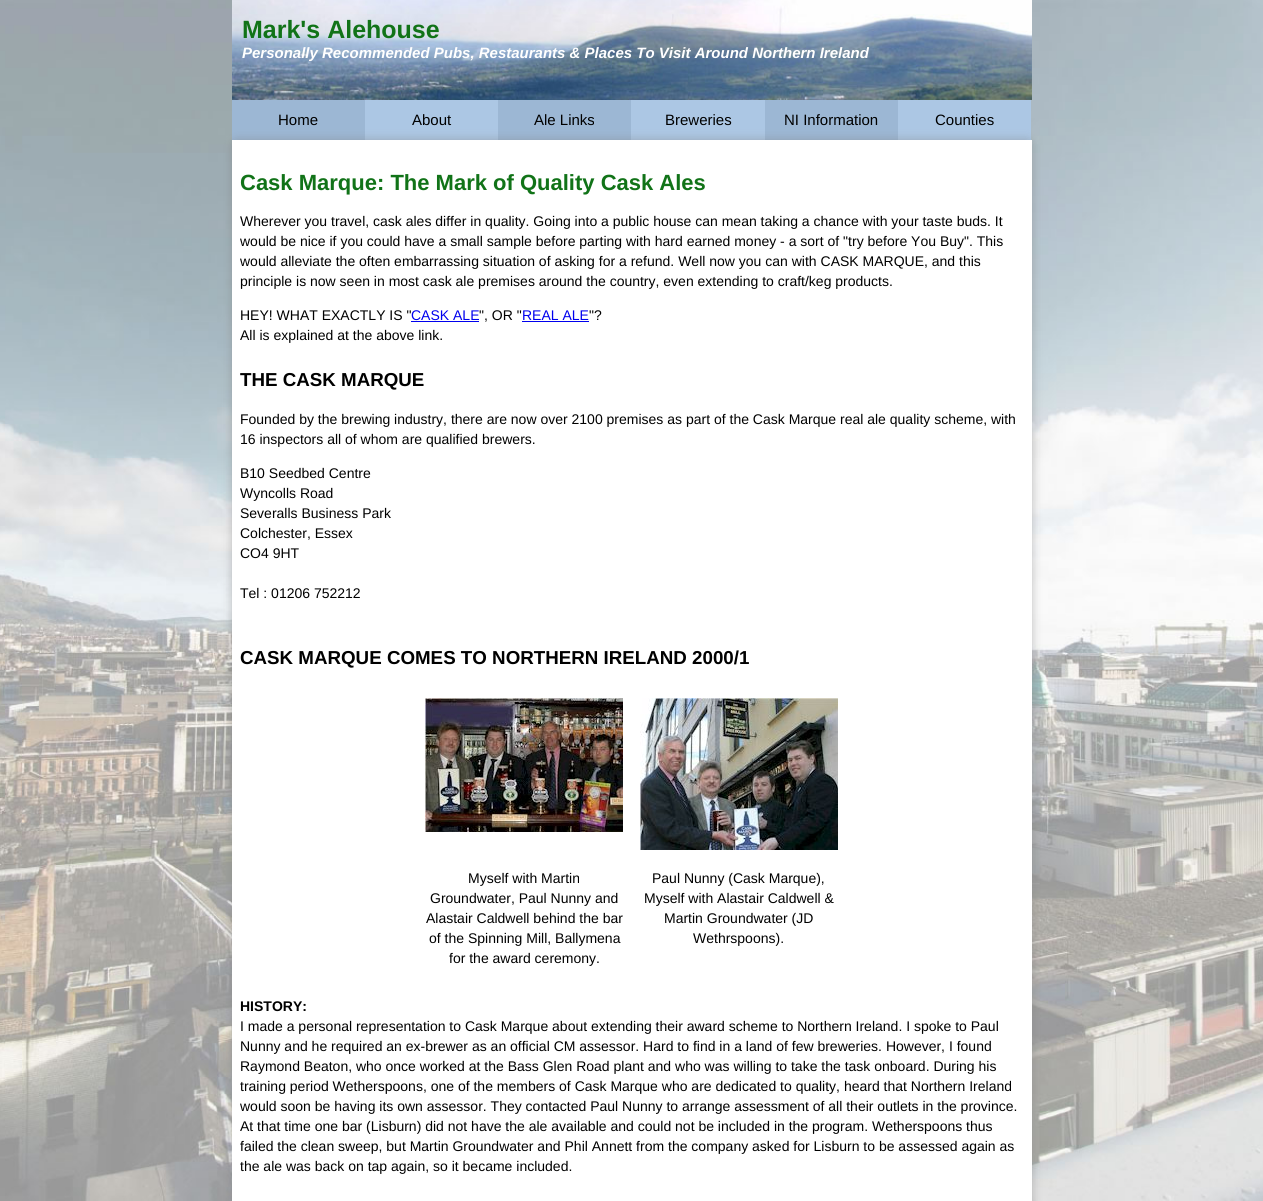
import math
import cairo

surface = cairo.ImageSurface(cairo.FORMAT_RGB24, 1263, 1201)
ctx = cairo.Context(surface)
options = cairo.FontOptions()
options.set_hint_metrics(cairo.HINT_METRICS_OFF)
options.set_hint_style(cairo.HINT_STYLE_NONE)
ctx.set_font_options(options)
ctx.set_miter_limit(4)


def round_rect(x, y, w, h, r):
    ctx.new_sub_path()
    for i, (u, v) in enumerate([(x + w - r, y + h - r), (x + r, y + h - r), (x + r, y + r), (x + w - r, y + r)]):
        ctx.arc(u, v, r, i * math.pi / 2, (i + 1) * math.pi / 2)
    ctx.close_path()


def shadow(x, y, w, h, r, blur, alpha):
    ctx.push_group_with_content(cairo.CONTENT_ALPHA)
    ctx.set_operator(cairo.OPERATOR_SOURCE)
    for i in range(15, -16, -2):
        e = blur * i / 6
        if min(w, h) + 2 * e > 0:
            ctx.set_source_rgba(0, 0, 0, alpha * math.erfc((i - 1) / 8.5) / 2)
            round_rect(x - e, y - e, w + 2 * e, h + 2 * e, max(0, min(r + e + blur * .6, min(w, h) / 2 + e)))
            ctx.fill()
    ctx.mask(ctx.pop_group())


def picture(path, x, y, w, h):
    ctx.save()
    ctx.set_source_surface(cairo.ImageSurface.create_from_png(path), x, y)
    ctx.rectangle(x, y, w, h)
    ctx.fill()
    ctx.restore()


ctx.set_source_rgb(1, 1, 1)
ctx.paint()
picture("img1.png", 0, 0, 1263, 1201)
picture("img2.png", 232, 0, 800, 100)
ctx.select_font_face("Liberation Sans", cairo.FONT_SLANT_NORMAL, cairo.FONT_WEIGHT_BOLD)
ctx.set_font_size(25)
ctx.set_source_rgb(0.067, 0.451, 0.094)
ctx.move_to(242, 38)
ctx.show_text("Mark's Alehouse")
ctx.select_font_face("Liberation Sans", cairo.FONT_SLANT_ITALIC, cairo.FONT_WEIGHT_BOLD)
ctx.set_font_size(15)
ctx.set_source_rgb(1, 1, 1)
ctx.move_to(242, 58)
ctx.show_text("Personally Recommended Pubs, Restaurants & Places To Visit Around Northern Ireland")
ctx.set_source_rgb(0.612, 0.718, 0.831)
ctx.rectangle(232, 100, 133, 40)
ctx.fill()
ctx.select_font_face("Liberation Sans")
ctx.set_source_rgb(0, 0, 0)
ctx.move_to(278, 125)
ctx.show_text("Home")
ctx.set_source_rgb(0.675, 0.78, 0.894)
ctx.rectangle(365, 100, 133, 40)
ctx.fill()
ctx.set_source_rgb(0, 0, 0)
ctx.move_to(412, 125)
ctx.show_text("About")
ctx.set_source_rgb(0.612, 0.718, 0.831)
ctx.rectangle(498, 100, 133, 40)
ctx.fill()
ctx.set_source_rgb(0, 0, 0)
ctx.move_to(534, 125)
ctx.show_text("Ale Links")
ctx.set_source_rgb(0.675, 0.78, 0.894)
ctx.rectangle(631, 100, 134, 40)
ctx.fill()
ctx.set_source_rgb(0, 0, 0)
ctx.move_to(665, 125)
ctx.show_text("Breweries")
ctx.set_source_rgb(0.612, 0.718, 0.831)
ctx.rectangle(765, 100, 133, 40)
ctx.fill()
ctx.set_source_rgb(0, 0, 0)
ctx.move_to(784, 125)
ctx.show_text("NI Information")
ctx.set_source_rgb(0.675, 0.78, 0.894)
ctx.rectangle(898, 100, 133, 40)
ctx.fill()
ctx.set_source_rgb(0, 0, 0)
ctx.move_to(935, 125)
ctx.show_text("Counties")
ctx.set_source_rgb(0.502, 0.502, 0.502)
shadow(232, 140, 800, 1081, 5, 5, 0.5)
ctx.set_source_rgb(1, 1, 1)
ctx.rectangle(232, 140, 800, 1061)
ctx.fill()
ctx.select_font_face("Liberation Sans", cairo.FONT_SLANT_NORMAL, cairo.FONT_WEIGHT_BOLD)
ctx.set_font_size(22)
ctx.set_source_rgb(0.067, 0.451, 0.094)
ctx.move_to(240, 190)
ctx.show_text("Cask Marque: The Mark of Quality Cask Ales")
ctx.select_font_face("Liberation Sans")
ctx.set_font_size(14)
ctx.set_source_rgb(0, 0, 0)
ctx.move_to(240, 226)
ctx.show_text("Wherever you travel, cask ales differ in quality. Going into a public house can mean taking a chance with your taste buds. It")
ctx.move_to(240, 246)
ctx.show_text("would be nice if you could have a small sample before parting with hard earned money - a sort of \"try before You Buy\". This")
ctx.move_to(240, 266)
ctx.show_text("would alleviate the often embarrassing situation of asking for a refund. Well now you can with CASK MARQUE, and this")
ctx.move_to(240, 286)
ctx.show_text("principle is now seen in most cask ale premises around the country, even extending to craft/keg products.")
ctx.move_to(240, 320)
ctx.show_text("HEY! WHAT EXACTLY IS \"")
ctx.set_source_rgb(0, 0, 0.933)
ctx.move_to(411, 320)
ctx.show_text("CASK ALE")
ctx.rectangle(411, 321, 68, 1)
ctx.fill()
ctx.set_source_rgb(0, 0, 0)
ctx.move_to(479, 320)
ctx.show_text("\", OR \"")
ctx.set_source_rgb(0, 0, 0.933)
ctx.move_to(522, 320)
ctx.show_text("REAL ALE")
ctx.rectangle(522, 321, 67, 1)
ctx.fill()
ctx.set_source_rgb(0, 0, 0)
ctx.move_to(589, 320)
ctx.show_text("\"?")
ctx.move_to(240, 340)
ctx.show_text("All is explained at the above link.")
ctx.select_font_face("Liberation Sans", cairo.FONT_SLANT_NORMAL, cairo.FONT_WEIGHT_BOLD)
ctx.set_font_size(18.75)
ctx.move_to(240, 386)
ctx.show_text("THE CASK MARQUE")
ctx.select_font_face("Liberation Sans")
ctx.set_font_size(14)
ctx.move_to(240, 424)
ctx.show_text("Founded by the brewing industry, there are now over 2100 premises as part of the Cask Marque real ale quality scheme, with")
ctx.move_to(240, 444)
ctx.show_text("16 inspectors all of whom are qualified brewers.")
ctx.move_to(240, 478)
ctx.show_text("B10 Seedbed Centre")
ctx.move_to(240, 498)
ctx.show_text("Wyncolls Road")
ctx.move_to(240, 518)
ctx.show_text("Severalls Business Park")
ctx.move_to(240, 538)
ctx.show_text("Colchester, Essex")
ctx.move_to(240, 558)
ctx.show_text("CO4 9HT")
ctx.move_to(240, 598)
ctx.show_text("Tel : 01206 752212")
ctx.select_font_face("Liberation Sans", cairo.FONT_SLANT_NORMAL, cairo.FONT_WEIGHT_BOLD)
ctx.set_font_size(18.75)
ctx.move_to(240, 664)
ctx.show_text("CASK MARQUE COMES TO NORTHERN IRELAND 2000/1")
picture("img3.png", 425, 698, 198, 134)
ctx.select_font_face("Liberation Sans")
ctx.set_font_size(14)
ctx.move_to(468, 883)
ctx.show_text("Myself with Martin")
ctx.move_to(430, 903)
ctx.show_text("Groundwater, Paul Nunny and")
ctx.move_to(426, 923)
ctx.show_text("Alastair Caldwell behind the bar")
ctx.move_to(429, 943)
ctx.show_text("of the Spinning Mill, Ballymena")
ctx.move_to(449, 963)
ctx.show_text("for the award ceremony.")
picture("img4.png", 640, 698, 198, 152)
ctx.move_to(652, 883)
ctx.show_text("Paul Nunny (Cask Marque),")
ctx.move_to(644, 903)
ctx.show_text("Myself with Alastair Caldwell &")
ctx.move_to(664, 923)
ctx.show_text("Martin Groundwater (JD")
ctx.move_to(693, 943)
ctx.show_text("Wethrspoons).")
ctx.select_font_face("Liberation Sans", cairo.FONT_SLANT_NORMAL, cairo.FONT_WEIGHT_BOLD)
ctx.move_to(240, 1011)
ctx.show_text("HISTORY:")
ctx.select_font_face("Liberation Sans")
ctx.move_to(240, 1031)
ctx.show_text("I made a personal representation to Cask Marque about extending their award scheme to Northern Ireland. I spoke to Paul")
ctx.move_to(240, 1051)
ctx.show_text("Nunny and he required an ex-brewer as an official CM assessor. Hard to find in a land of few breweries. However, I found")
ctx.move_to(240, 1071)
ctx.show_text("Raymond Beaton, who once worked at the Bass Glen Road plant and who was willing to take the task onboard. During his")
ctx.move_to(240, 1091)
ctx.show_text("training period Wetherspoons, one of the members of Cask Marque who are dedicated to quality, heard that Northern Ireland")
ctx.move_to(240, 1111)
ctx.show_text("would soon be having its own assessor. They contacted Paul Nunny to arrange assessment of all their outlets in the province.")
ctx.move_to(240, 1131)
ctx.show_text("At that time one bar (Lisburn) did not have the ale available and could not be included in the program. Wetherspoons thus")
ctx.move_to(240, 1151)
ctx.show_text("failed the clean sweep, but Martin Groundwater and Phil Annett from the company asked for Lisburn to be assessed again as")
ctx.move_to(240, 1171)
ctx.show_text("the ale was back on tap again, so it became included.")
surface.write_to_png("page.png")
